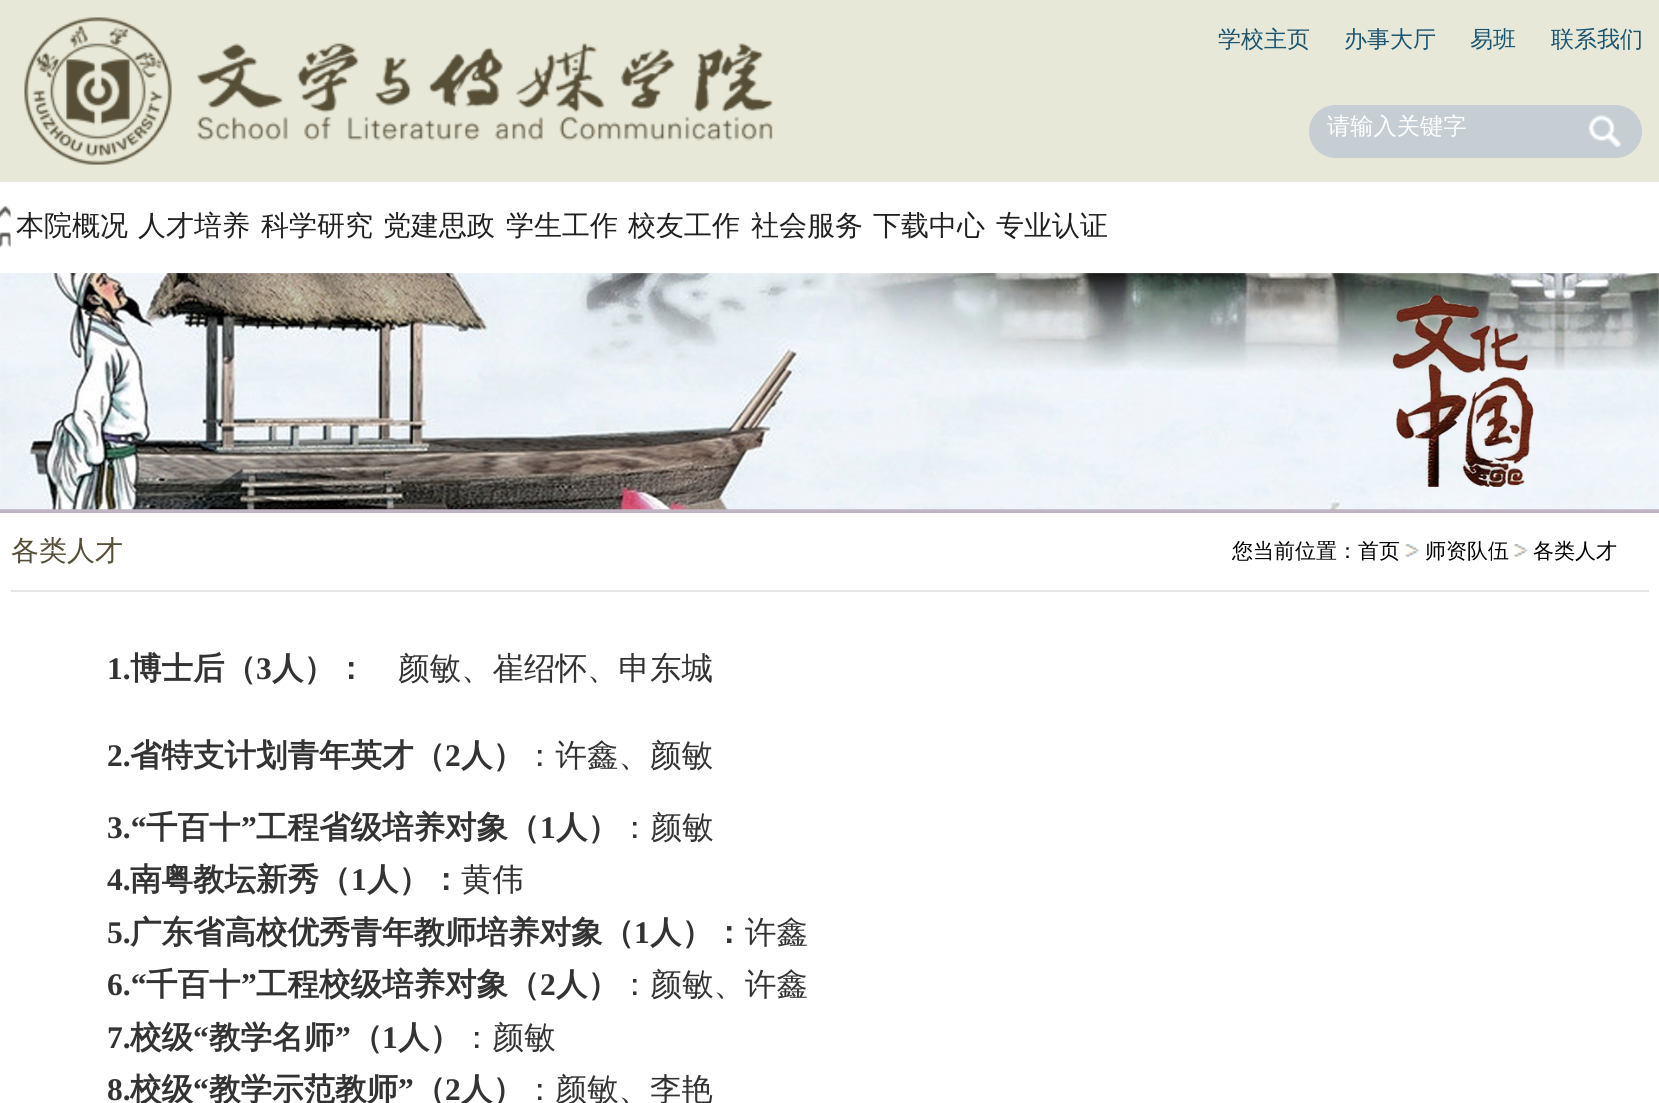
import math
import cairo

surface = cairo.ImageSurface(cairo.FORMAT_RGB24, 1659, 1103)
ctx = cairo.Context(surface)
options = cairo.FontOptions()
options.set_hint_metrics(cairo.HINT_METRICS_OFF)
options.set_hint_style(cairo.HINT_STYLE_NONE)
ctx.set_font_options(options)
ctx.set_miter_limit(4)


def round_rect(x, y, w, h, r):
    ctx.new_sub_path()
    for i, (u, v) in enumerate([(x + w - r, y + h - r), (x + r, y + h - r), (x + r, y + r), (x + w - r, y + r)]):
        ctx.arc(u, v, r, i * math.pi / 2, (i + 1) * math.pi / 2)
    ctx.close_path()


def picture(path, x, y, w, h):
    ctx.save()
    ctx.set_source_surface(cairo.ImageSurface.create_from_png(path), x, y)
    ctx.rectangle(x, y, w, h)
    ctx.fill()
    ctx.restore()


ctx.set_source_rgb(1, 1, 1)
ctx.paint()
ctx.set_source_rgb(0.906, 0.91, 0.847)
ctx.rectangle(0, 0, 1659, 182)
ctx.fill()
picture("img1.png", 24, 17, 749, 148)
ctx.select_font_face("WenQuanYi Zen Hei Medium")
ctx.set_font_size(23)
ctx.set_source_rgb(0.106, 0.333, 0.439)
ctx.move_to(1218, 47)
ctx.show_text("学校主页")
ctx.move_to(1344, 47)
ctx.show_text("办事大厅")
ctx.move_to(1470, 47)
ctx.show_text("易班")
ctx.move_to(1551, 47)
ctx.show_text("联系我们")
ctx.set_source_rgb(0.776, 0.808, 0.831)
round_rect(1309, 105, 333, 53, 26.5)
ctx.fill()
ctx.set_font_size(23.25)
ctx.set_source_rgb(1, 1, 1)
ctx.move_to(1327, 134)
ctx.show_text("请输入关键字")
picture("img2.png", 1589, 115, 32, 32)
picture("img3.png", 0, 206, 11, 41)
ctx.set_font_size(28)
ctx.set_source_rgb(0.129, 0.129, 0.129)
ctx.move_to(16, 235)
ctx.show_text("本院概况")
ctx.move_to(138, 235)
ctx.show_text("人才培养")
ctx.move_to(261, 235)
ctx.show_text("科学研究")
ctx.move_to(383, 235)
ctx.show_text("党建思政")
ctx.move_to(506, 235)
ctx.show_text("学生工作")
ctx.move_to(628, 235)
ctx.show_text("校友工作")
ctx.move_to(751, 235)
ctx.show_text("社会服务")
ctx.move_to(873, 235)
ctx.show_text("下载中心")
ctx.move_to(996, 235)
ctx.show_text("专业认证")
ctx.set_source_rgb(0.749, 0.706, 0.757)
ctx.rectangle(0, 509, 1659, 4)
ctx.fill()
picture("img4.png", 0, 273, 1659, 237)
ctx.set_source_rgb(0.898, 0.898, 0.898)
ctx.rectangle(11, 590, 1638, 2)
ctx.fill()
ctx.set_source_rgb(0.337, 0.306, 0.212)
ctx.move_to(11, 560)
ctx.show_text("各类人才")
ctx.set_font_size(21)
ctx.set_source_rgb(0, 0, 0)
ctx.move_to(1232, 558)
ctx.show_text("您当前位置：首页")
picture("img5.png", 1404, 544, 16, 13)
ctx.move_to(1425, 558)
ctx.show_text("师资队伍")
picture("img6.png", 1513, 544, 16, 13)
ctx.move_to(1533, 558)
ctx.show_text("各类人才")
ctx.select_font_face("Liberation Serif", cairo.FONT_SLANT_NORMAL, cairo.FONT_WEIGHT_BOLD)
ctx.set_font_size(31.5)
ctx.set_source_rgb(0.2, 0.2, 0.2)
ctx.move_to(107, 679)
ctx.show_text("1.")
ctx.select_font_face("WenQuanYi Zen Hei", cairo.FONT_SLANT_NORMAL, cairo.FONT_WEIGHT_BOLD)
ctx.move_to(130, 679)
ctx.show_text("博士后（")
ctx.select_font_face("Liberation Serif", cairo.FONT_SLANT_NORMAL, cairo.FONT_WEIGHT_BOLD)
ctx.move_to(256, 679)
ctx.show_text("3")
ctx.select_font_face("WenQuanYi Zen Hei", cairo.FONT_SLANT_NORMAL, cairo.FONT_WEIGHT_BOLD)
ctx.move_to(272, 679)
ctx.show_text("人）：")
ctx.select_font_face("WenQuanYi Zen Hei Medium")
ctx.move_to(398, 679)
ctx.show_text("颜敏、崔绍怀、申东城")
ctx.select_font_face("Liberation Serif", cairo.FONT_SLANT_NORMAL, cairo.FONT_WEIGHT_BOLD)
ctx.move_to(107, 766)
ctx.show_text("2.")
ctx.select_font_face("WenQuanYi Zen Hei", cairo.FONT_SLANT_NORMAL, cairo.FONT_WEIGHT_BOLD)
ctx.move_to(130, 766)
ctx.show_text("省特支计划青年英才（")
ctx.select_font_face("Liberation Serif", cairo.FONT_SLANT_NORMAL, cairo.FONT_WEIGHT_BOLD)
ctx.move_to(445, 766)
ctx.show_text("2")
ctx.select_font_face("WenQuanYi Zen Hei", cairo.FONT_SLANT_NORMAL, cairo.FONT_WEIGHT_BOLD)
ctx.move_to(461, 766)
ctx.show_text("人）")
ctx.select_font_face("WenQuanYi Zen Hei Medium")
ctx.move_to(524, 766)
ctx.show_text("：许鑫、颜敏")
ctx.select_font_face("Liberation Serif", cairo.FONT_SLANT_NORMAL, cairo.FONT_WEIGHT_BOLD)
ctx.move_to(107, 838)
ctx.show_text("3.“")
ctx.select_font_face("WenQuanYi Zen Hei", cairo.FONT_SLANT_NORMAL, cairo.FONT_WEIGHT_BOLD)
ctx.move_to(146, 838)
ctx.show_text("千百十")
ctx.select_font_face("Liberation Serif", cairo.FONT_SLANT_NORMAL, cairo.FONT_WEIGHT_BOLD)
ctx.move_to(241, 838)
ctx.show_text("”")
ctx.select_font_face("WenQuanYi Zen Hei", cairo.FONT_SLANT_NORMAL, cairo.FONT_WEIGHT_BOLD)
ctx.move_to(256, 838)
ctx.show_text("工程省级培养对象（")
ctx.select_font_face("Liberation Serif", cairo.FONT_SLANT_NORMAL, cairo.FONT_WEIGHT_BOLD)
ctx.move_to(540, 838)
ctx.show_text("1")
ctx.select_font_face("WenQuanYi Zen Hei", cairo.FONT_SLANT_NORMAL, cairo.FONT_WEIGHT_BOLD)
ctx.move_to(556, 838)
ctx.show_text("人）")
ctx.select_font_face("WenQuanYi Zen Hei Medium")
ctx.move_to(619, 838)
ctx.show_text("：颜敏")
ctx.select_font_face("Liberation Serif", cairo.FONT_SLANT_NORMAL, cairo.FONT_WEIGHT_BOLD)
ctx.move_to(107, 890)
ctx.show_text("4.")
ctx.select_font_face("WenQuanYi Zen Hei", cairo.FONT_SLANT_NORMAL, cairo.FONT_WEIGHT_BOLD)
ctx.move_to(130, 890)
ctx.show_text("南粤教坛新秀（")
ctx.select_font_face("Liberation Serif", cairo.FONT_SLANT_NORMAL, cairo.FONT_WEIGHT_BOLD)
ctx.move_to(351, 890)
ctx.show_text("1")
ctx.select_font_face("WenQuanYi Zen Hei", cairo.FONT_SLANT_NORMAL, cairo.FONT_WEIGHT_BOLD)
ctx.move_to(367, 890)
ctx.show_text("人）：")
ctx.select_font_face("WenQuanYi Zen Hei Medium")
ctx.move_to(461, 890)
ctx.show_text("黄伟")
ctx.select_font_face("Liberation Serif", cairo.FONT_SLANT_NORMAL, cairo.FONT_WEIGHT_BOLD)
ctx.move_to(107, 943)
ctx.show_text("5.")
ctx.select_font_face("WenQuanYi Zen Hei", cairo.FONT_SLANT_NORMAL, cairo.FONT_WEIGHT_BOLD)
ctx.move_to(130, 943)
ctx.show_text("广东省高校优秀青年教师培养对象（")
ctx.select_font_face("Liberation Serif", cairo.FONT_SLANT_NORMAL, cairo.FONT_WEIGHT_BOLD)
ctx.move_to(634, 943)
ctx.show_text("1")
ctx.select_font_face("WenQuanYi Zen Hei", cairo.FONT_SLANT_NORMAL, cairo.FONT_WEIGHT_BOLD)
ctx.move_to(650, 943)
ctx.show_text("人）：")
ctx.select_font_face("WenQuanYi Zen Hei Medium")
ctx.move_to(745, 943)
ctx.show_text("许鑫")
ctx.select_font_face("Liberation Serif", cairo.FONT_SLANT_NORMAL, cairo.FONT_WEIGHT_BOLD)
ctx.move_to(107, 995)
ctx.show_text("6.“")
ctx.select_font_face("WenQuanYi Zen Hei", cairo.FONT_SLANT_NORMAL, cairo.FONT_WEIGHT_BOLD)
ctx.move_to(146, 995)
ctx.show_text("千百十")
ctx.select_font_face("Liberation Serif", cairo.FONT_SLANT_NORMAL, cairo.FONT_WEIGHT_BOLD)
ctx.move_to(241, 995)
ctx.show_text("”")
ctx.select_font_face("WenQuanYi Zen Hei", cairo.FONT_SLANT_NORMAL, cairo.FONT_WEIGHT_BOLD)
ctx.move_to(256, 995)
ctx.show_text("工程校级培养对象（")
ctx.select_font_face("Liberation Serif", cairo.FONT_SLANT_NORMAL, cairo.FONT_WEIGHT_BOLD)
ctx.move_to(540, 995)
ctx.show_text("2")
ctx.select_font_face("WenQuanYi Zen Hei", cairo.FONT_SLANT_NORMAL, cairo.FONT_WEIGHT_BOLD)
ctx.move_to(556, 995)
ctx.show_text("人）")
ctx.select_font_face("WenQuanYi Zen Hei Medium")
ctx.move_to(619, 995)
ctx.show_text("：颜敏、许鑫")
ctx.select_font_face("Liberation Serif", cairo.FONT_SLANT_NORMAL, cairo.FONT_WEIGHT_BOLD)
ctx.move_to(107, 1048)
ctx.show_text("7.")
ctx.select_font_face("WenQuanYi Zen Hei", cairo.FONT_SLANT_NORMAL, cairo.FONT_WEIGHT_BOLD)
ctx.move_to(130, 1048)
ctx.show_text("校级")
ctx.select_font_face("Liberation Serif", cairo.FONT_SLANT_NORMAL, cairo.FONT_WEIGHT_BOLD)
ctx.move_to(193, 1048)
ctx.show_text("“")
ctx.select_font_face("WenQuanYi Zen Hei", cairo.FONT_SLANT_NORMAL, cairo.FONT_WEIGHT_BOLD)
ctx.move_to(209, 1048)
ctx.show_text("教学名师")
ctx.select_font_face("Liberation Serif", cairo.FONT_SLANT_NORMAL, cairo.FONT_WEIGHT_BOLD)
ctx.move_to(335, 1048)
ctx.show_text("”")
ctx.select_font_face("WenQuanYi Zen Hei", cairo.FONT_SLANT_NORMAL, cairo.FONT_WEIGHT_BOLD)
ctx.move_to(351, 1048)
ctx.show_text("（")
ctx.select_font_face("Liberation Serif", cairo.FONT_SLANT_NORMAL, cairo.FONT_WEIGHT_BOLD)
ctx.move_to(382, 1048)
ctx.show_text("1")
ctx.select_font_face("WenQuanYi Zen Hei", cairo.FONT_SLANT_NORMAL, cairo.FONT_WEIGHT_BOLD)
ctx.move_to(398, 1048)
ctx.show_text("人）")
ctx.select_font_face("WenQuanYi Zen Hei Medium")
ctx.move_to(461, 1048)
ctx.show_text("：颜敏")
ctx.select_font_face("Liberation Serif", cairo.FONT_SLANT_NORMAL, cairo.FONT_WEIGHT_BOLD)
ctx.move_to(107, 1100)
ctx.show_text("8.")
ctx.select_font_face("WenQuanYi Zen Hei", cairo.FONT_SLANT_NORMAL, cairo.FONT_WEIGHT_BOLD)
ctx.move_to(130, 1100)
ctx.show_text("校级")
ctx.select_font_face("Liberation Serif", cairo.FONT_SLANT_NORMAL, cairo.FONT_WEIGHT_BOLD)
ctx.move_to(193, 1100)
ctx.show_text("“")
ctx.select_font_face("WenQuanYi Zen Hei", cairo.FONT_SLANT_NORMAL, cairo.FONT_WEIGHT_BOLD)
ctx.move_to(209, 1100)
ctx.show_text("教学示范教师")
ctx.select_font_face("Liberation Serif", cairo.FONT_SLANT_NORMAL, cairo.FONT_WEIGHT_BOLD)
ctx.move_to(398, 1100)
ctx.show_text("”")
ctx.select_font_face("WenQuanYi Zen Hei", cairo.FONT_SLANT_NORMAL, cairo.FONT_WEIGHT_BOLD)
ctx.move_to(414, 1100)
ctx.show_text("（")
ctx.select_font_face("Liberation Serif", cairo.FONT_SLANT_NORMAL, cairo.FONT_WEIGHT_BOLD)
ctx.move_to(445, 1100)
ctx.show_text("2")
ctx.select_font_face("WenQuanYi Zen Hei", cairo.FONT_SLANT_NORMAL, cairo.FONT_WEIGHT_BOLD)
ctx.move_to(461, 1100)
ctx.show_text("人）")
ctx.select_font_face("WenQuanYi Zen Hei Medium")
ctx.move_to(524, 1100)
ctx.show_text("：颜敏、李艳")
surface.write_to_png("page.png")
